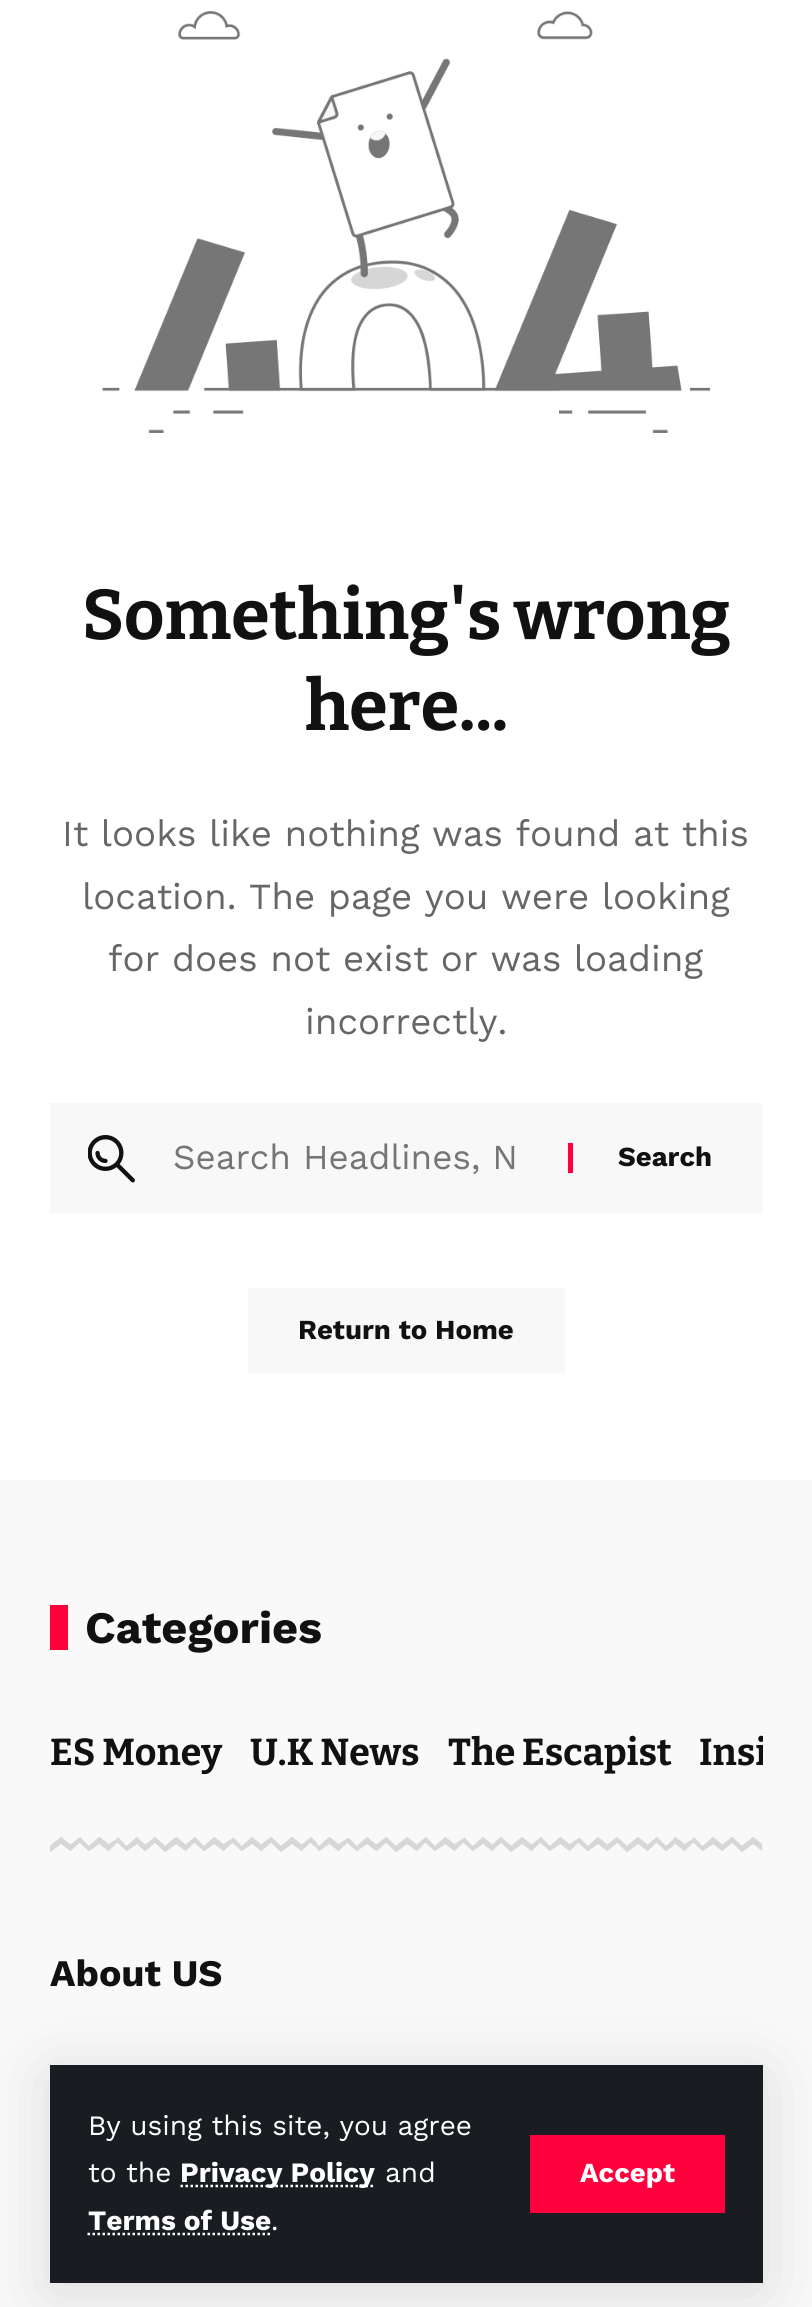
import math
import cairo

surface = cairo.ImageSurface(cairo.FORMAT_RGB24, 812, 2307)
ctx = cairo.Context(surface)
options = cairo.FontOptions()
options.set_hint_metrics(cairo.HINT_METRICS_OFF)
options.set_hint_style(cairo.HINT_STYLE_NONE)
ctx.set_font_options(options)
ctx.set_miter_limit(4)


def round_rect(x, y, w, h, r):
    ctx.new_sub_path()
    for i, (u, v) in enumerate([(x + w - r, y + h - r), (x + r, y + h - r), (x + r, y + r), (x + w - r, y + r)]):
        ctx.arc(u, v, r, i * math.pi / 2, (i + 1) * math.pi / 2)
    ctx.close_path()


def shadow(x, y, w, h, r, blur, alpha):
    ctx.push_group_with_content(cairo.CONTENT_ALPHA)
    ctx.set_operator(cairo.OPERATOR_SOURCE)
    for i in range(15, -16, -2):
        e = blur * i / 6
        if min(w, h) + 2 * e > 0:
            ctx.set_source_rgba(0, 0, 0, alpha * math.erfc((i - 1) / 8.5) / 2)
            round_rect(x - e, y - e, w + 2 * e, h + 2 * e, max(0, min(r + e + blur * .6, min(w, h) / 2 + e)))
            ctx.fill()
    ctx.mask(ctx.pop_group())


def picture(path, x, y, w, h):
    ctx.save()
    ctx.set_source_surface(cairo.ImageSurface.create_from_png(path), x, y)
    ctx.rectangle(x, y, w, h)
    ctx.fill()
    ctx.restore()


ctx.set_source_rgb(1, 1, 1)
ctx.paint()
picture("img1.png", 102, 11, 608, 422)
ctx.select_font_face("Bitter", cairo.FONT_SLANT_NORMAL, cairo.FONT_WEIGHT_BOLD)
ctx.set_font_size(70)
ctx.set_source_rgb(0.067, 0.067, 0.067)
ctx.move_to(82, 639)
ctx.show_text("Something's wrong")
ctx.move_to(305, 730)
ctx.show_text("here...")
ctx.select_font_face("Work Sans")
ctx.set_font_size(36.75)
ctx.set_source_rgb(0.4, 0.4, 0.4)
ctx.move_to(62, 846)
ctx.show_text("It looks like nothing was found at this")
ctx.move_to(82, 909)
ctx.show_text("location. The page you were looking")
ctx.move_to(108, 971)
ctx.show_text("for does not exist or was loading")
ctx.move_to(305, 1034)
ctx.show_text("incorrectly.")
ctx.set_source_rgb(0.969, 0.969, 0.969)
ctx.rectangle(50, 1103, 713, 110)
ctx.fill()
picture("img2.png", 88, 1135, 47, 48)
ctx.set_font_size(35)
ctx.set_source_rgb(0.459, 0.459, 0.459)
ctx.move_to(173, 1169)
ctx.show_text("Search Headlines, N")
ctx.set_source_rgb(1, 0, 0.235)
ctx.rectangle(568, 1143, 5, 30)
ctx.fill()
ctx.select_font_face("Work Sans", cairo.FONT_SLANT_NORMAL, cairo.FONT_WEIGHT_BOLD)
ctx.set_font_size(27.5)
ctx.set_source_rgb(0.067, 0.067, 0.067)
ctx.move_to(618, 1166)
ctx.show_text("Search")
ctx.set_source_rgb(0.969, 0.969, 0.969)
ctx.rectangle(248, 1288, 317, 85)
ctx.fill()
ctx.set_source_rgb(0.067, 0.067, 0.067)
ctx.move_to(298, 1339)
ctx.show_text("Return to Home")
ctx.set_source_rgb(0.976, 0.976, 0.976)
ctx.rectangle(0, 1480, 812, 827)
ctx.fill()
ctx.set_source_rgb(1, 0, 0.235)
ctx.rectangle(50, 1605, 18, 45)
ctx.fill()
ctx.set_font_size(45)
ctx.set_source_rgb(0.067, 0.067, 0.067)
ctx.move_to(85, 1643)
ctx.show_text("Categories")
ctx.select_font_face("Bitter", cairo.FONT_SLANT_NORMAL, cairo.FONT_WEIGHT_BOLD)
ctx.set_font_size(37.5)
ctx.move_to(50, 1765)
ctx.show_text("ES Money")
ctx.move_to(250, 1765)
ctx.show_text("U.K News")
ctx.move_to(448, 1765)
ctx.show_text("The Escapist")
ctx.save()
ctx.rectangle(50, 1725, 713, 58)
ctx.clip()
ctx.move_to(699, 1765)
ctx.show_text("Insi")
ctx.restore()
picture("img3.png", 50, 1837, 713, 15)
ctx.select_font_face("Work Sans", cairo.FONT_SLANT_NORMAL, cairo.FONT_WEIGHT_BOLD)
ctx.move_to(50, 1986)
ctx.show_text("About US")
ctx.set_source_rgb(0, 0, 0)
shadow(50, 2075, 713, 218, 0, 37.5, 0.12)
ctx.set_source_rgb(0.098, 0.11, 0.125)
ctx.rectangle(50, 2065, 713, 218)
ctx.fill()
ctx.select_font_face("Work Sans")
ctx.set_font_size(28)
ctx.set_source_rgb(1, 1, 1)
ctx.move_to(88, 2135)
ctx.show_text("By using this site, you agree")
ctx.move_to(88, 2182)
ctx.show_text("to the")
ctx.new_path()
ctx.move_to(180.5, 2186)
ctx.line_to(375, 2186)
ctx.set_line_width(2.5)
ctx.set_dash([2.5, 2.5])
ctx.stroke()
ctx.select_font_face("Work Sans", cairo.FONT_SLANT_NORMAL, cairo.FONT_WEIGHT_BOLD)
ctx.move_to(180, 2182)
ctx.show_text("Privacy Policy")
ctx.select_font_face("Work Sans")
ctx.move_to(385, 2182)
ctx.show_text("and")
ctx.select_font_face("Work Sans", cairo.FONT_SLANT_NORMAL, cairo.FONT_WEIGHT_BOLD)
ctx.move_to(88, 2230)
ctx.show_text("Terms of Use")
ctx.new_path()
ctx.move_to(87.5, 2234)
ctx.line_to(270.5, 2234)
ctx.stroke()
ctx.select_font_face("Work Sans")
ctx.move_to(271, 2230)
ctx.show_text(".")
ctx.set_source_rgb(1, 0, 0.235)
ctx.rectangle(530, 2135, 195, 78)
ctx.fill()
ctx.select_font_face("Work Sans", cairo.FONT_SLANT_NORMAL, cairo.FONT_WEIGHT_BOLD)
ctx.set_font_size(27.5)
ctx.set_source_rgb(1, 1, 1)
ctx.move_to(580, 2182)
ctx.show_text("Accept")
surface.write_to_png("page.png")
